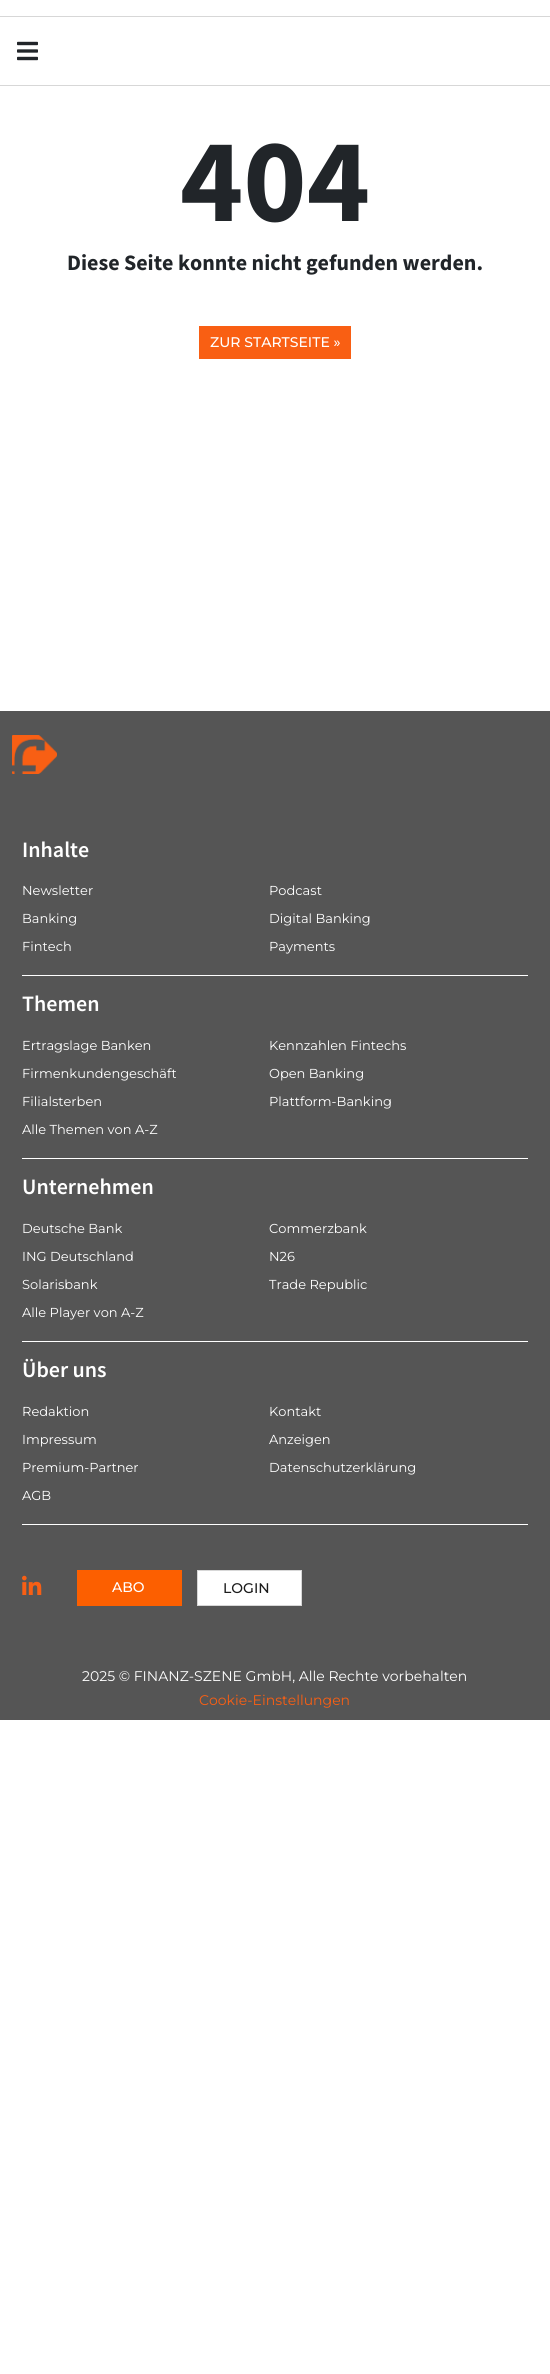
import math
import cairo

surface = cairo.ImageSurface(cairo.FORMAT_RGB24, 550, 2374)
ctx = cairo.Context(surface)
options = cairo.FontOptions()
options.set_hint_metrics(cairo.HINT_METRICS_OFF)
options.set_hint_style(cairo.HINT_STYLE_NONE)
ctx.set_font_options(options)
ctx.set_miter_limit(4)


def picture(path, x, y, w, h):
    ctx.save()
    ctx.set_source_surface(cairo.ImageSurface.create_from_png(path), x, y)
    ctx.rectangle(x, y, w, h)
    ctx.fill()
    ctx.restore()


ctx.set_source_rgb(1, 1, 1)
ctx.paint()
ctx.set_source_rgb(0.843, 0.843, 0.843)
ctx.rectangle(0, 16, 550, 1)
ctx.fill()
ctx.rectangle(0, 85, 550, 1)
ctx.fill()
picture("img1.png", 17, 41, 21, 20)
ctx.select_font_face("Source Sans Pro", cairo.FONT_SLANT_NORMAL, cairo.FONT_WEIGHT_BOLD)
ctx.set_font_size(120)
ctx.set_source_rgb(0.129, 0.145, 0.161)
ctx.move_to(180, 221)
ctx.show_text("404")
ctx.set_font_size(22)
ctx.move_to(67, 270)
ctx.show_text("Diese Seite konnte nicht gefunden werden.")
ctx.set_source_rgb(0.973, 0.373, 0.078)
ctx.rectangle(199, 326, 152, 33)
ctx.fill()
ctx.select_font_face("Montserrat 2 Thin")
ctx.set_font_size(14)
ctx.set_source_rgb(1, 1, 1)
ctx.move_to(210, 347)
ctx.show_text("ZUR STARTSEITE »")
ctx.set_source_rgb(0.333, 0.333, 0.333)
ctx.rectangle(0, 711, 550, 1009)
ctx.fill()
picture("img2.png", 12, 735, 45, 39)
ctx.set_source_rgb(1, 1, 1)
ctx.rectangle(22, 975, 506, 1)
ctx.fill()
ctx.select_font_face("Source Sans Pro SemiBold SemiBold")
ctx.set_font_size(22)
ctx.move_to(22, 857)
ctx.show_text("Inhalte")
ctx.select_font_face("Montserrat Thin")
ctx.set_font_size(13)
ctx.move_to(22, 895)
ctx.show_text("Newsletter")
ctx.move_to(269, 895)
ctx.show_text("Podcast")
ctx.move_to(22, 923)
ctx.show_text("Banking")
ctx.move_to(269, 923)
ctx.show_text("Digital Banking")
ctx.move_to(22, 951)
ctx.show_text("Fintech")
ctx.move_to(269, 951)
ctx.show_text("Payments")
ctx.rectangle(22, 1158, 506, 1)
ctx.fill()
ctx.select_font_face("Source Sans Pro SemiBold SemiBold")
ctx.set_font_size(22)
ctx.move_to(22, 1011)
ctx.show_text("Themen")
ctx.select_font_face("Montserrat Thin")
ctx.set_font_size(13)
ctx.move_to(22, 1050)
ctx.show_text("Ertragslage Banken")
ctx.move_to(269, 1050)
ctx.show_text("Kennzahlen Fintechs")
ctx.move_to(22, 1078)
ctx.show_text("Firmenkundengeschäft")
ctx.move_to(269, 1078)
ctx.show_text("Open Banking")
ctx.move_to(22, 1106)
ctx.show_text("Filialsterben")
ctx.move_to(269, 1106)
ctx.show_text("Plattform-Banking")
ctx.move_to(22, 1134)
ctx.show_text("Alle Themen von A-Z")
ctx.rectangle(22, 1341, 506, 1)
ctx.fill()
ctx.select_font_face("Source Sans Pro SemiBold SemiBold")
ctx.set_font_size(22)
ctx.move_to(22, 1194)
ctx.show_text("Unternehmen")
ctx.select_font_face("Montserrat Thin")
ctx.set_font_size(13)
ctx.move_to(22, 1233)
ctx.show_text("Deutsche Bank")
ctx.move_to(269, 1233)
ctx.show_text("Commerzbank")
ctx.move_to(22, 1261)
ctx.show_text("ING Deutschland")
ctx.move_to(269, 1261)
ctx.show_text("N26")
ctx.move_to(22, 1289)
ctx.show_text("Solarisbank")
ctx.move_to(269, 1289)
ctx.show_text("Trade Republic")
ctx.move_to(22, 1317)
ctx.show_text("Alle Player von A-Z")
ctx.rectangle(22, 1524, 506, 1)
ctx.fill()
ctx.select_font_face("Source Sans Pro SemiBold SemiBold")
ctx.set_font_size(22)
ctx.move_to(22, 1377)
ctx.show_text("Über uns")
ctx.select_font_face("Montserrat Thin")
ctx.set_font_size(13)
ctx.move_to(22, 1416)
ctx.show_text("Redaktion")
ctx.move_to(269, 1416)
ctx.show_text("Kontakt")
ctx.move_to(22, 1444)
ctx.show_text("Impressum")
ctx.move_to(269, 1444)
ctx.show_text("Anzeigen")
ctx.move_to(22, 1472)
ctx.show_text("Premium-Partner")
ctx.move_to(269, 1472)
ctx.show_text("Datenschutzerklärung")
ctx.move_to(22, 1500)
ctx.show_text("AGB")
ctx.set_source_rgb(0.988, 0.373, 0)
ctx.rectangle(77, 1570, 105, 36)
ctx.fill()
ctx.select_font_face("Montserrat 2 Thin")
ctx.set_font_size(14)
ctx.set_source_rgb(1, 1, 1)
ctx.move_to(112, 1592)
ctx.show_text("ABO")
ctx.rectangle(197.5, 1570.5, 104, 35)
ctx.fill_preserve()
ctx.set_source_rgb(0.843, 0.843, 0.843)
ctx.set_line_width(1)
ctx.stroke()
ctx.set_source_rgb(0.114, 0.114, 0.114)
ctx.move_to(223, 1593)
ctx.show_text("LOGIN")
picture("img3.png", 22, 1575, 20, 20)
ctx.select_font_face("Montserrat Thin")
ctx.set_source_rgb(1, 1, 1)
ctx.move_to(82, 1681)
ctx.show_text("2025 © FINANZ-SZENE GmbH, Alle Rechte vorbehalten")
ctx.set_source_rgb(0.973, 0.373, 0.078)
ctx.move_to(199, 1705)
ctx.show_text("Cookie-Einstellungen")
surface.write_to_png("page.png")
